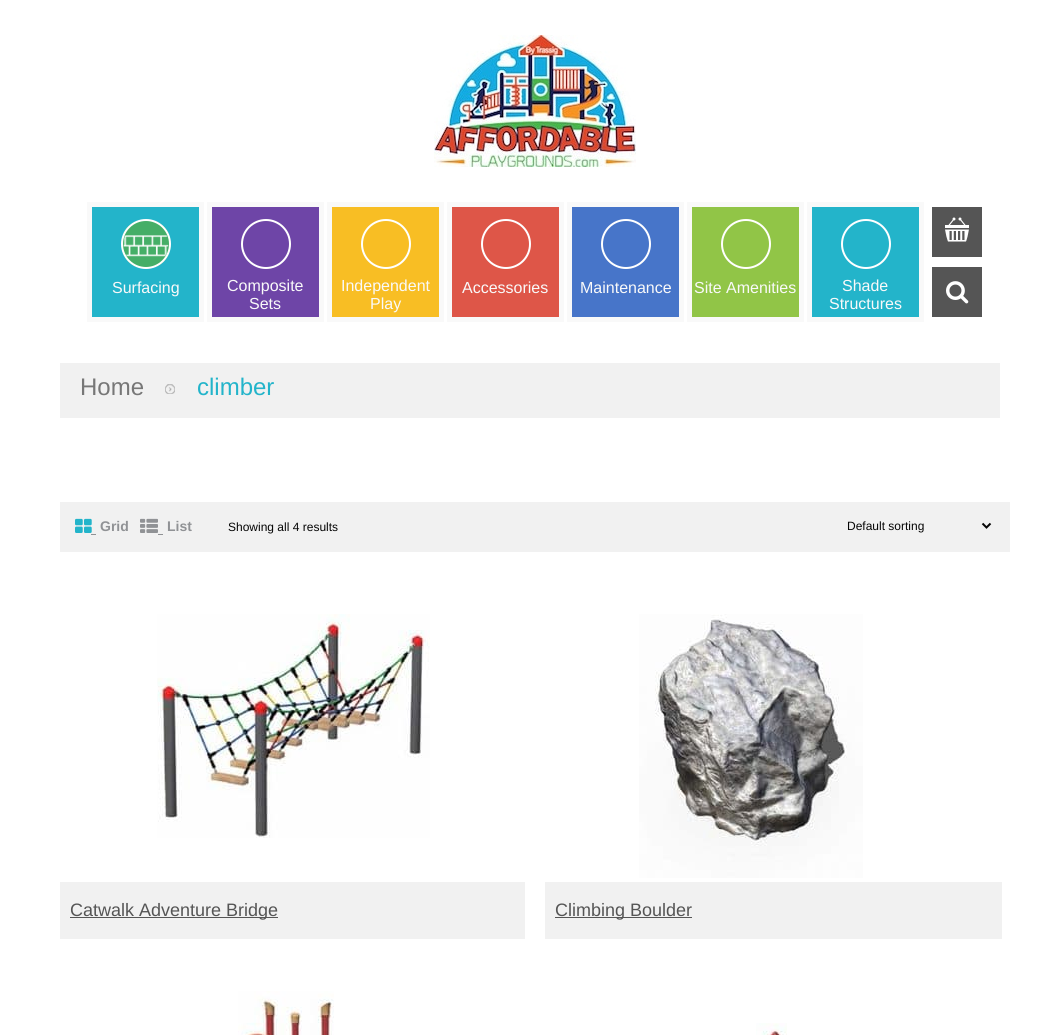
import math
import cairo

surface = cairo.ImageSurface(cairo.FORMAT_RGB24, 1059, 1035)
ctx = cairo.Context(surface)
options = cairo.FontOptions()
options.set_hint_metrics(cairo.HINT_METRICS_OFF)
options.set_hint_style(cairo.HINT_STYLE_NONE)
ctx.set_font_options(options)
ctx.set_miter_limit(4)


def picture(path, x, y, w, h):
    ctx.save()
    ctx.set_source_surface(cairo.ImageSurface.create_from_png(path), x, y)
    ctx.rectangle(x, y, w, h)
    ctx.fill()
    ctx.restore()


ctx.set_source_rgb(1, 1, 1)
ctx.paint()
picture("img1.png", 434, 35, 202, 132)
ctx.set_source_rgb(0.137, 0.706, 0.792)
ctx.rectangle(89.5, 204.5, 112, 115)
ctx.fill_preserve()
ctx.set_source_rgb(0.973, 0.973, 0.973)
ctx.set_line_width(5)
ctx.stroke()
picture("img2.png", 123, 221, 46, 46)
ctx.arc(146, 244, 24, 0, 2 * math.pi)
ctx.set_source_rgb(1, 1, 1)
ctx.set_line_width(2)
ctx.stroke()
ctx.select_font_face("Liberation Sans")
ctx.set_font_size(16)
ctx.set_source_rgb(0.973, 0.973, 0.973)
ctx.move_to(112, 293)
ctx.show_text("Surfacing")
ctx.set_source_rgb(0.431, 0.271, 0.655)
ctx.rectangle(209.5, 204.5, 112, 115)
ctx.fill_preserve()
ctx.set_source_rgb(0.973, 0.973, 0.973)
ctx.set_line_width(5)
ctx.stroke()
ctx.arc(266, 244, 24, 0, 2 * math.pi)
ctx.set_source_rgb(1, 1, 1)
ctx.set_line_width(2)
ctx.stroke()
ctx.set_source_rgb(0.973, 0.973, 0.973)
ctx.move_to(227, 291)
ctx.show_text("Composite")
ctx.move_to(249, 309)
ctx.show_text("Sets")
ctx.set_source_rgb(0.969, 0.745, 0.141)
ctx.rectangle(329.5, 204.5, 112, 115)
ctx.fill_preserve()
ctx.set_source_rgb(0.973, 0.973, 0.973)
ctx.set_line_width(5)
ctx.stroke()
ctx.arc(386, 244, 24, 0, 2 * math.pi)
ctx.set_source_rgb(1, 1, 1)
ctx.set_line_width(2)
ctx.stroke()
ctx.set_source_rgb(0.973, 0.973, 0.973)
ctx.move_to(341, 291)
ctx.show_text("Independent")
ctx.move_to(370, 309)
ctx.show_text("Play")
ctx.set_source_rgb(0.871, 0.337, 0.282)
ctx.rectangle(449.5, 204.5, 112, 115)
ctx.fill_preserve()
ctx.set_source_rgb(0.973, 0.973, 0.973)
ctx.set_line_width(5)
ctx.stroke()
ctx.arc(506, 244, 24, 0, 2 * math.pi)
ctx.set_source_rgb(1, 1, 1)
ctx.set_line_width(2)
ctx.stroke()
ctx.set_source_rgb(0.973, 0.973, 0.973)
ctx.move_to(462, 293)
ctx.show_text("Accessories")
ctx.set_source_rgb(0.278, 0.459, 0.788)
ctx.rectangle(569.5, 204.5, 112, 115)
ctx.fill_preserve()
ctx.set_source_rgb(0.973, 0.973, 0.973)
ctx.set_line_width(5)
ctx.stroke()
ctx.arc(626, 244, 24, 0, 2 * math.pi)
ctx.set_source_rgb(1, 1, 1)
ctx.set_line_width(2)
ctx.stroke()
ctx.set_source_rgb(0.973, 0.973, 0.973)
ctx.move_to(580, 293)
ctx.show_text("Maintenance")
ctx.set_source_rgb(0.569, 0.773, 0.278)
ctx.rectangle(689.5, 204.5, 112, 115)
ctx.fill_preserve()
ctx.set_source_rgb(0.973, 0.973, 0.973)
ctx.set_line_width(5)
ctx.stroke()
ctx.arc(746, 244, 24, 0, 2 * math.pi)
ctx.set_source_rgb(1, 1, 1)
ctx.set_line_width(2)
ctx.stroke()
ctx.set_source_rgb(0.973, 0.973, 0.973)
ctx.move_to(694, 293)
ctx.show_text("Site Amenities")
ctx.set_source_rgb(0.137, 0.706, 0.792)
ctx.rectangle(809.5, 204.5, 112, 115)
ctx.fill_preserve()
ctx.set_source_rgb(0.973, 0.973, 0.973)
ctx.set_line_width(5)
ctx.stroke()
ctx.arc(866, 244, 24, 0, 2 * math.pi)
ctx.set_source_rgb(1, 1, 1)
ctx.set_line_width(2)
ctx.stroke()
ctx.set_source_rgb(0.973, 0.973, 0.973)
ctx.move_to(842, 291)
ctx.show_text("Shade")
ctx.move_to(829, 309)
ctx.show_text("Structures")
ctx.set_source_rgb(0.333, 0.333, 0.333)
ctx.rectangle(932, 207, 50, 50)
ctx.fill()
picture("img3.png", 945, 217, 24, 25)
ctx.rectangle(932, 267, 50, 50)
ctx.fill()
picture("img4.png", 946, 281, 23, 23)
ctx.set_source_rgb(0.945, 0.945, 0.945)
ctx.rectangle(60, 363, 940, 55)
ctx.fill()
ctx.set_font_size(24)
ctx.set_source_rgb(0.467, 0.467, 0.467)
ctx.move_to(80, 395)
ctx.show_text("Home")
picture("img5.png", 165, 384, 10, 10)
ctx.set_source_rgb(0.137, 0.706, 0.792)
ctx.move_to(197, 395)
ctx.show_text("climber")
ctx.set_source_rgb(0.945, 0.945, 0.945)
ctx.rectangle(60, 502, 950, 50)
ctx.fill()
picture("img6.png", 75, 518, 17, 15)
ctx.select_font_face("Liberation Sans", cairo.FONT_SLANT_NORMAL, cairo.FONT_WEIGHT_BOLD)
ctx.set_font_size(14)
ctx.set_source_rgb(0.565, 0.573, 0.584)
ctx.move_to(100, 531)
ctx.show_text("Grid")
ctx.rectangle(91, 534, 5, 1)
ctx.fill()
picture("img7.png", 140, 518, 18, 15)
ctx.move_to(167, 531)
ctx.show_text("List")
ctx.rectangle(158, 534, 5, 1)
ctx.fill()
ctx.select_font_face("Liberation Sans")
ctx.set_font_size(12)
ctx.set_source_rgb(0.02, 0.02, 0.02)
ctx.move_to(228, 531)
ctx.show_text("Showing all 4 results")
ctx.new_path()
ctx.move_to(982.5, 523.5)
ctx.line_to(986.5, 527.5)
ctx.line_to(990.5, 523.5)
ctx.stroke()
ctx.move_to(847, 530)
ctx.show_text("Default sorting")
picture("img8.png", 157, 614, 273, 224)
ctx.set_source_rgb(0.945, 0.945, 0.945)
ctx.rectangle(60, 882, 465, 57)
ctx.fill()
ctx.set_source_rgb(0.333, 0.333, 0.333)
ctx.rectangle(70, 917, 208, 1)
ctx.fill()
ctx.set_font_size(18)
ctx.move_to(70, 916)
ctx.show_text("Catwalk Adventure Bridge")
picture("img9.png", 639, 614, 224, 264)
ctx.set_source_rgb(0.945, 0.945, 0.945)
ctx.rectangle(545, 882, 457, 57)
ctx.fill()
ctx.set_source_rgb(0.333, 0.333, 0.333)
ctx.rectangle(555, 917, 137, 1)
ctx.fill()
ctx.move_to(555, 916)
ctx.show_text("Climbing Boulder")
picture("img10.png", 238, 991, 96, 44)
picture("img11.png", 756, 1023, 31, 12)
surface.write_to_png("page.png")
